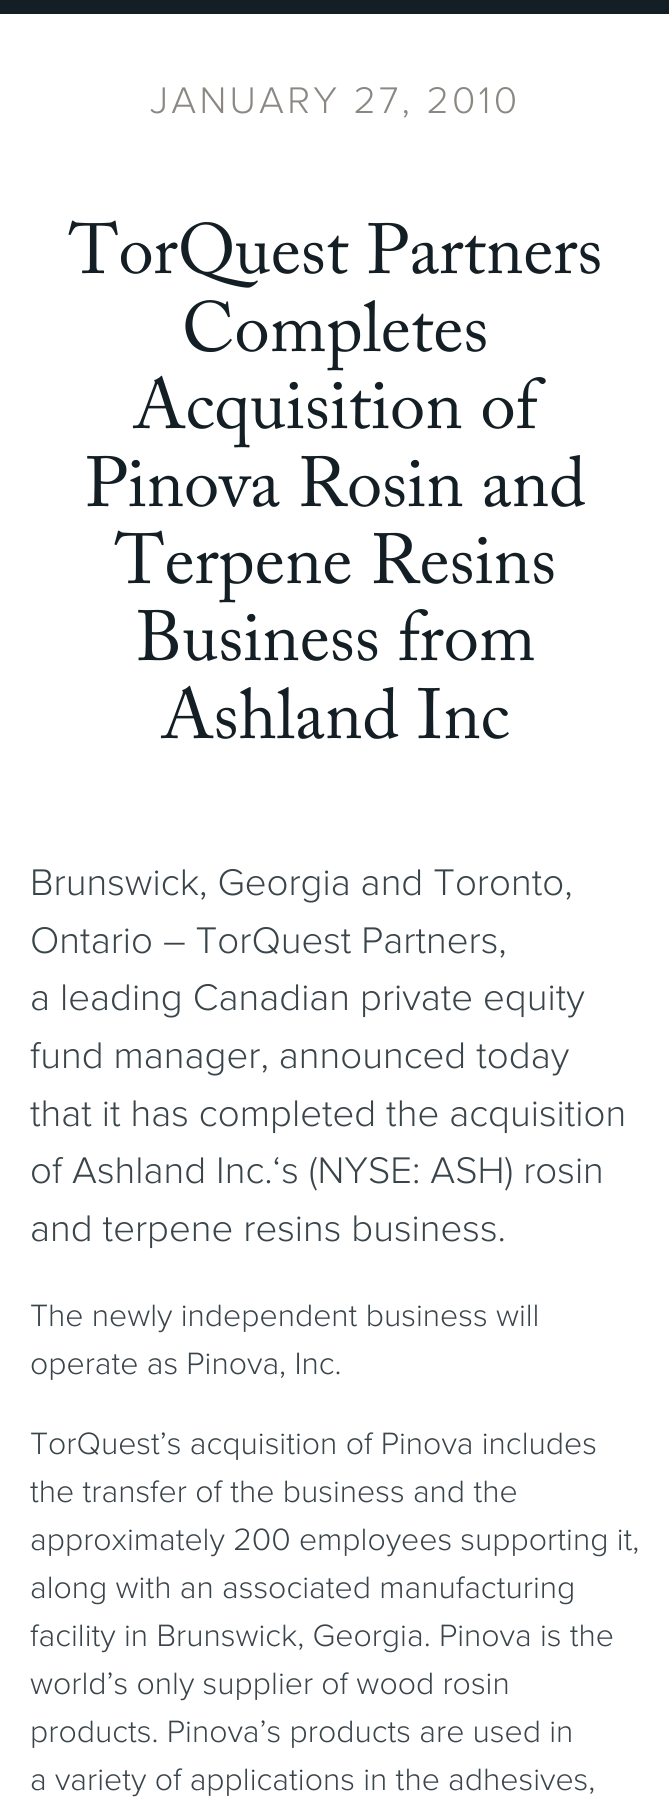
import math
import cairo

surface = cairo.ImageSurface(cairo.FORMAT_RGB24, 669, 1805)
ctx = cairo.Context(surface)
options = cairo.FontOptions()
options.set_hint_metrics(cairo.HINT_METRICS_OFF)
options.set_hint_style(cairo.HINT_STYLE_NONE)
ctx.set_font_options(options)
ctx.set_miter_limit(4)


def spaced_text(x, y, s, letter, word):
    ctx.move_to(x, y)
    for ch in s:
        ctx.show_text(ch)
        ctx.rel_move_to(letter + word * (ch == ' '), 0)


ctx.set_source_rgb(1, 1, 1)
ctx.paint()
ctx.set_source_rgb(0.082, 0.122, 0.145)
ctx.rectangle(0, 0, 669, 14)
ctx.fill()
ctx.select_font_face("Proxima Nova Light")
ctx.set_font_size(38.4)
ctx.set_source_rgb(0.545, 0.529, 0.51)
spaced_text(150, 113, "JANUARY 27, 2010", 3.25, 0)
ctx.select_font_face("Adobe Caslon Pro")
ctx.set_font_size(70.5)
ctx.set_source_rgb(0.082, 0.122, 0.145)
ctx.move_to(69, 273)
ctx.show_text("TorQuest Partners")
ctx.move_to(182, 351)
ctx.show_text("Completes")
ctx.move_to(133, 428)
ctx.show_text("Acquisition of")
ctx.move_to(85, 506)
ctx.show_text("Pinova Rosin and")
ctx.move_to(115, 583)
ctx.show_text("Terpene Resins")
ctx.move_to(136, 660)
ctx.show_text("Business from")
ctx.move_to(161, 738)
ctx.show_text("Ashland Inc")
ctx.select_font_face("Proxima Nova Light")
ctx.set_font_size(38.4)
ctx.set_source_rgb(0.227, 0.271, 0.294)
ctx.move_to(30, 895)
ctx.show_text("Brunswick, Georgia and Toronto,")
ctx.move_to(30, 953)
ctx.show_text("Ontario – TorQuest Partners,")
ctx.move_to(30, 1010)
ctx.show_text("a leading Canadian private equity")
ctx.move_to(30, 1068)
ctx.show_text("fund manager, announced today")
ctx.move_to(30, 1126)
ctx.show_text("that it has completed the acquisition")
ctx.move_to(30, 1183)
ctx.show_text("of Ashland Inc.‘s (NYSE: ASH) rosin")
ctx.move_to(30, 1241)
ctx.show_text("and terpene resins business.")
ctx.set_font_size(32)
ctx.move_to(30, 1326)
ctx.show_text("The newly independent business will")
ctx.move_to(30, 1374)
ctx.show_text("operate as Pinova, Inc.")
ctx.move_to(30, 1454)
ctx.show_text("TorQuest’s acquisition of Pinova includes")
ctx.move_to(30, 1502)
ctx.show_text("the transfer of the business and the")
ctx.move_to(30, 1550)
ctx.show_text("approximately 200 employees supporting it,")
ctx.move_to(30, 1598)
ctx.show_text("along with an associated manufacturing")
ctx.move_to(30, 1646)
ctx.show_text("facility in Brunswick, Georgia. Pinova is the")
ctx.move_to(30, 1694)
ctx.show_text("world’s only supplier of wood rosin")
ctx.move_to(30, 1742)
ctx.show_text("products. Pinova’s products are used in")
ctx.move_to(30, 1790)
ctx.show_text("a variety of applications in the adhesives,")
surface.write_to_png("page.png")
